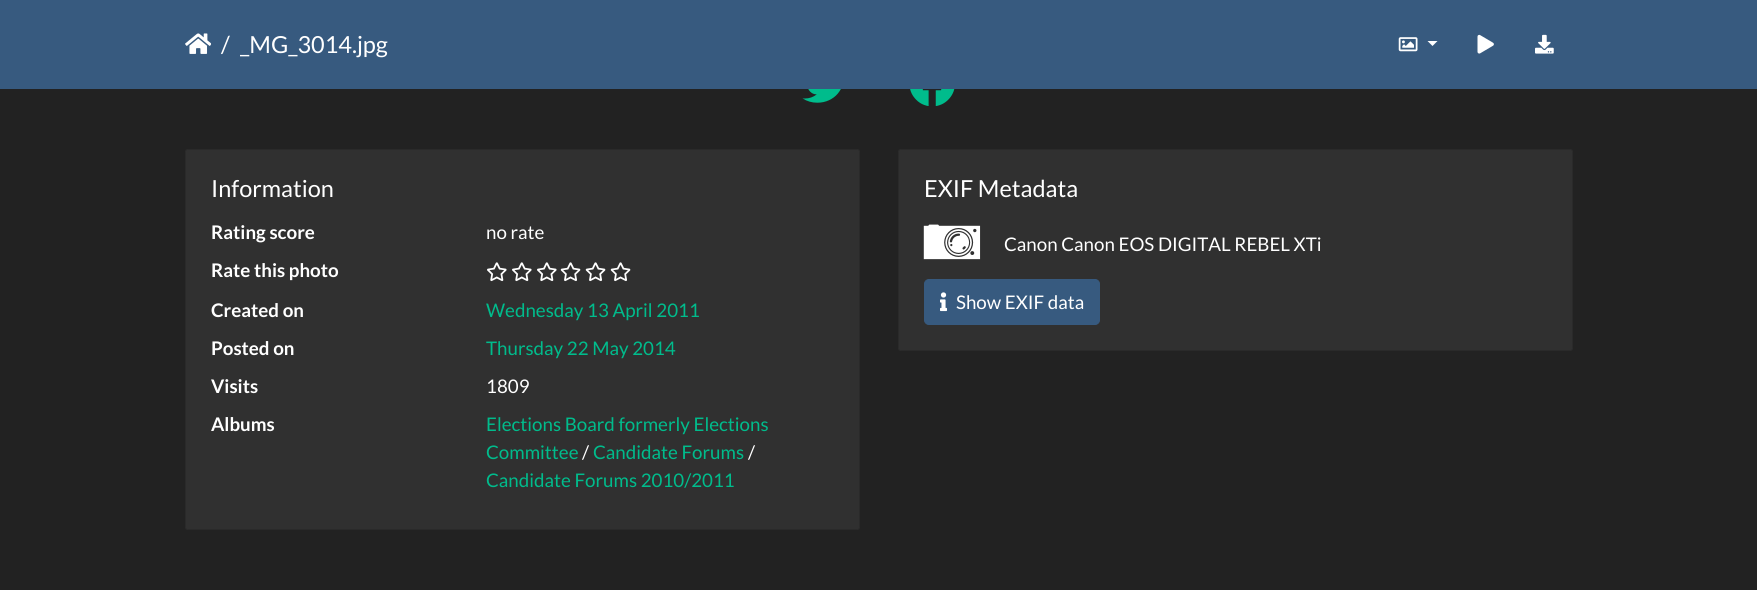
import math
import cairo

surface = cairo.ImageSurface(cairo.FORMAT_RGB24, 1757, 590)
ctx = cairo.Context(surface)
options = cairo.FontOptions()
options.set_hint_metrics(cairo.HINT_METRICS_OFF)
options.set_hint_style(cairo.HINT_STYLE_NONE)
ctx.set_font_options(options)
ctx.set_miter_limit(4)


def round_rect(x, y, w, h, r):
    ctx.new_sub_path()
    for i, (u, v) in enumerate([(x + w - r, y + h - r), (x + r, y + h - r), (x + r, y + r), (x + w - r, y + r)]):
        ctx.arc(u, v, r, i * math.pi / 2, (i + 1) * math.pi / 2)
    ctx.close_path()


def picture(path, x, y, w, h):
    ctx.save()
    ctx.set_source_surface(cairo.ImageSurface.create_from_png(path), x, y)
    ctx.rectangle(x, y, w, h)
    ctx.fill()
    ctx.restore()


ctx.set_source_rgb(0.133, 0.133, 0.133)
ctx.paint()
ctx.set_source_rgb(0.216, 0.353, 0.498)
ctx.rectangle(0, 0, 1757, 89)
ctx.fill()
picture("img1.png", 185, 33, 26, 21)
ctx.select_font_face("Lato")
ctx.set_font_size(23.5)
ctx.set_source_rgb(1, 1, 1)
ctx.move_to(221, 53)
ctx.show_text("/")
ctx.move_to(240, 53)
ctx.show_text("_MG_3014.jpg")
picture("img2.png", 1398, 37, 20, 15)
ctx.new_path()
ctx.move_to(1427.5, 41)
ctx.line_to(1437.5, 41)
ctx.line_to(1432.5, 46)
ctx.close_path()
ctx.fill()
picture("img3.png", 1477, 34, 17, 20)
picture("img4.png", 1535, 34, 19, 20)
picture("img5.png", 802, 89, 39, 14)
picture("img6.png", 910, 89, 45, 17)
ctx.set_source_rgb(0.188, 0.188, 0.188)
round_rect(185, 149, 675, 381, 2.5)
ctx.fill()
round_rect(185.5, 149.5, 674, 380, 2)
ctx.set_source_rgba(0, 0, 0, 0.12)
ctx.set_line_width(1)
ctx.stroke()
ctx.set_source_rgb(1, 1, 1)
ctx.move_to(211, 197)
ctx.show_text("Information")
ctx.select_font_face("Lato", cairo.FONT_SLANT_NORMAL, cairo.FONT_WEIGHT_BOLD)
ctx.set_font_size(18.75)
ctx.move_to(211, 239)
ctx.show_text("Rating score")
ctx.select_font_face("Lato")
ctx.move_to(486, 239)
ctx.show_text("no rate")
ctx.select_font_face("Lato", cairo.FONT_SLANT_NORMAL, cairo.FONT_WEIGHT_BOLD)
ctx.move_to(211, 277)
ctx.show_text("Rate this photo")
picture("img7.png", 487, 262, 20, 20)
picture("img7.png", 512, 262, 20, 20)
picture("img7.png", 537, 262, 20, 20)
picture("img8.png", 560, 262, 21, 20)
picture("img8.png", 585, 262, 21, 20)
picture("img8.png", 610, 262, 21, 20)
ctx.move_to(211, 317)
ctx.show_text("Created on")
ctx.select_font_face("Lato")
ctx.set_source_rgb(0, 0.737, 0.549)
ctx.move_to(486, 317)
ctx.show_text("Wednesday 13 April 2011")
ctx.select_font_face("Lato", cairo.FONT_SLANT_NORMAL, cairo.FONT_WEIGHT_BOLD)
ctx.set_source_rgb(1, 1, 1)
ctx.move_to(211, 355)
ctx.show_text("Posted on")
ctx.select_font_face("Lato")
ctx.set_source_rgb(0, 0.737, 0.549)
ctx.move_to(486, 355)
ctx.show_text("Thursday 22 May 2014")
ctx.select_font_face("Lato", cairo.FONT_SLANT_NORMAL, cairo.FONT_WEIGHT_BOLD)
ctx.set_source_rgb(1, 1, 1)
ctx.move_to(211, 393)
ctx.show_text("Visits")
ctx.select_font_face("Lato")
ctx.move_to(486, 393)
ctx.show_text("1809")
ctx.select_font_face("Lato", cairo.FONT_SLANT_NORMAL, cairo.FONT_WEIGHT_BOLD)
ctx.move_to(211, 431)
ctx.show_text("Albums")
ctx.select_font_face("Lato")
ctx.set_source_rgb(0, 0.737, 0.549)
ctx.move_to(486, 431)
ctx.show_text("Elections Board formerly Elections")
ctx.move_to(486, 459)
ctx.show_text("Committee")
ctx.set_source_rgb(1, 1, 1)
ctx.move_to(582, 459)
ctx.show_text("/")
ctx.set_source_rgb(0, 0.737, 0.549)
ctx.move_to(593, 459)
ctx.show_text("Candidate Forums")
ctx.set_source_rgb(1, 1, 1)
ctx.move_to(748, 459)
ctx.show_text("/")
ctx.set_source_rgb(0, 0.737, 0.549)
ctx.move_to(486, 487)
ctx.show_text("Candidate Forums 2010/2011")
ctx.set_source_rgb(0.188, 0.188, 0.188)
round_rect(898, 149, 675, 202, 2.5)
ctx.fill()
round_rect(898.5, 149.5, 674, 201, 2)
ctx.set_source_rgba(0, 0, 0, 0.12)
ctx.stroke()
ctx.set_font_size(23.5)
ctx.set_source_rgb(1, 1, 1)
ctx.move_to(924, 197)
ctx.show_text("EXIF Metadata")
picture("img9.png", 923, 224, 58, 36)
ctx.set_font_size(18.75)
ctx.move_to(1004, 251)
ctx.show_text("Canon Canon EOS DIGITAL REBEL XTi")
ctx.set_source_rgb(0.216, 0.353, 0.498)
round_rect(924.5, 279.5, 175, 45, 4.5)
ctx.fill_preserve()
ctx.stroke()
picture("img10.png", 940, 292, 8, 20)
ctx.set_source_rgb(1, 1, 1)
ctx.move_to(956, 309)
ctx.show_text("Show EXIF data")
surface.write_to_png("page.png")
